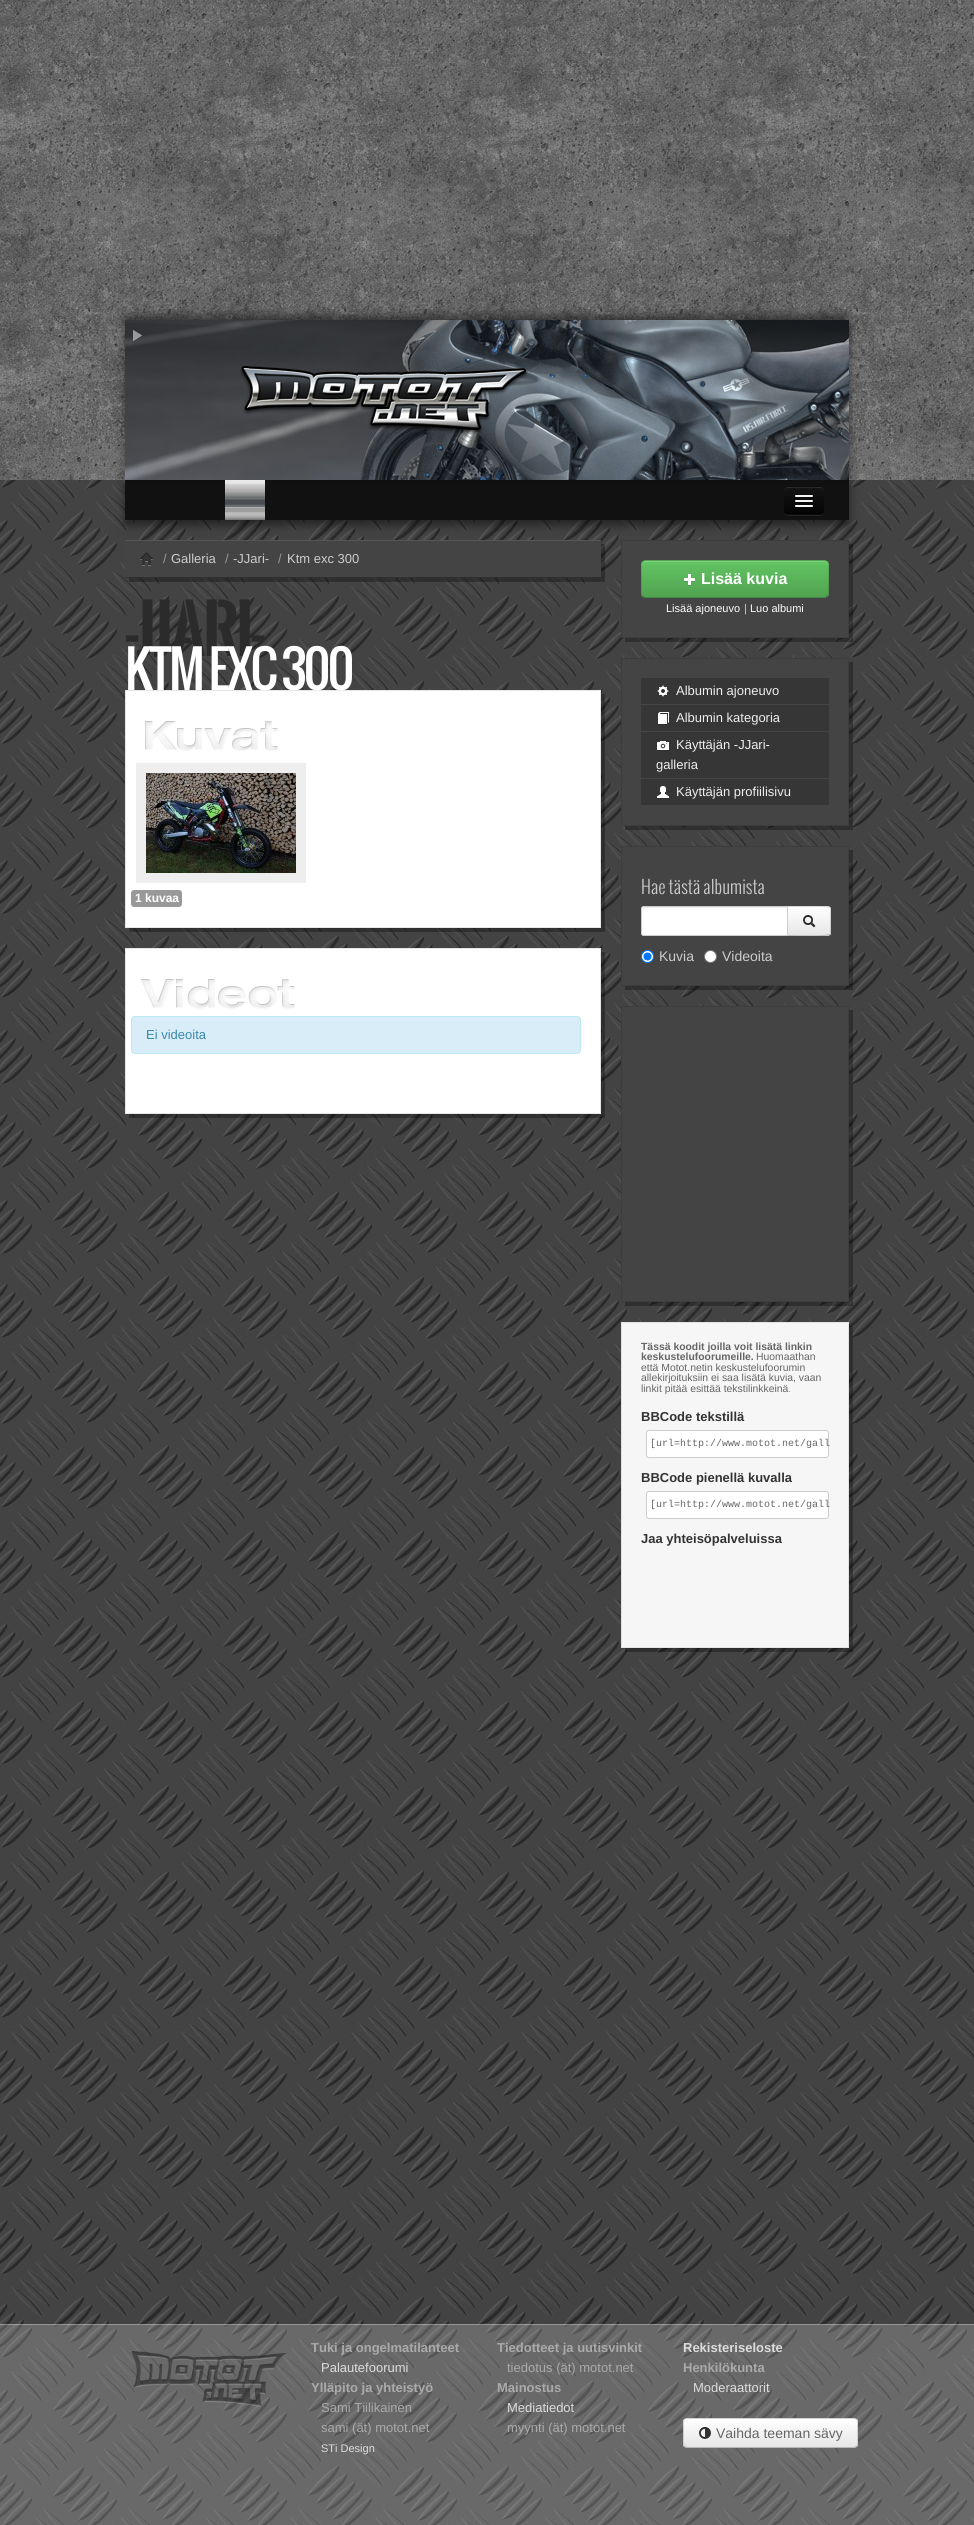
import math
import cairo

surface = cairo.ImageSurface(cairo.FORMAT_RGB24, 974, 2525)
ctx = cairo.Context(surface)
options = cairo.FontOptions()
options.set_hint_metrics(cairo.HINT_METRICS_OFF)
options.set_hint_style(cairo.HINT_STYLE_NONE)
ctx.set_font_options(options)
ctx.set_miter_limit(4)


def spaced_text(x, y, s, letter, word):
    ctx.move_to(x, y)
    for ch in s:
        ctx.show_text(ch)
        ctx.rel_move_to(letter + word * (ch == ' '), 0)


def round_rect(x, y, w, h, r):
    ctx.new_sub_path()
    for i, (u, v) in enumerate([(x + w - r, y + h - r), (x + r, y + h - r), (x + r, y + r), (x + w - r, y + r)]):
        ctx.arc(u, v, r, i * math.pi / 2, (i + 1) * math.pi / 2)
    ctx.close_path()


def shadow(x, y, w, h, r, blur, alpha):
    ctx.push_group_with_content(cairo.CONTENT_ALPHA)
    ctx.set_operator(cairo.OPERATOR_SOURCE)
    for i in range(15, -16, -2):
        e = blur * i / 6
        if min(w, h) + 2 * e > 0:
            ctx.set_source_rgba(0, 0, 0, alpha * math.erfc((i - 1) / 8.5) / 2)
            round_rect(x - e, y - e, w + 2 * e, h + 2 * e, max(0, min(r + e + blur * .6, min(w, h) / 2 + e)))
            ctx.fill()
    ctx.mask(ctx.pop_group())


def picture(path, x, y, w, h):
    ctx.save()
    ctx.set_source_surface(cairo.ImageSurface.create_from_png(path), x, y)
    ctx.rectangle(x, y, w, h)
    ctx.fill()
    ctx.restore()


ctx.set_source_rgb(1, 1, 1)
ctx.paint()
picture("img1.png", 0, 480, 974, 2045)
picture("img2.png", 0, 0, 974, 480)
ctx.set_source_rgb(0, 0, 0)
shadow(125, 485, 724, 40, 0, 5, 0.5)
ctx.set_source_rgb(0.067, 0.067, 0.067)
ctx.rectangle(125, 480, 724, 40)
ctx.fill()
picture("img6.png", 225, 480, 40, 40)
ctx.set_source_rgb(0.137, 0.137, 0.137)
ctx.new_path()
ctx.move_to(784, 511)
ctx.curve_to(784, 517, 789, 516, 793, 516)
ctx.line_to(815, 516)
ctx.curve_to(819, 516, 824, 517, 824, 511)
ctx.curve_to(824, 513, 822, 515, 820, 515)
ctx.line_to(788, 515)
ctx.curve_to(786, 515, 784, 513, 784, 511)
ctx.close_path()
ctx.fill()
ctx.set_source_rgb(0.055, 0.055, 0.055)
round_rect(784, 486, 40, 29, 4)
ctx.fill()
ctx.save()
round_rect(784, 486, 40, 29, 4)
ctx.clip()
gradient = cairo.LinearGradient(804, 487, 804, 514)
gradient.add_color_stop_rgba(0, 0.082, 0.082, 0.082, 1)
gradient.add_color_stop_rgba(1, 0.016, 0.016, 0.016, 1)
ctx.set_source(gradient)
ctx.rectangle(784, 487, 40, 27)
ctx.fill()
ctx.restore()
ctx.set_source_rgb(0.173, 0.173, 0.173)
ctx.new_path()
ctx.move_to(788, 488)
ctx.line_to(820, 488)
ctx.curve_to(822, 488, 823, 489, 823, 491)
ctx.curve_to(823, 486, 819, 487, 814.5, 487)
ctx.line_to(793.5, 487)
ctx.curve_to(789, 487, 785, 486, 785, 491)
ctx.curve_to(785, 489, 786, 488, 788, 488)
ctx.close_path()
ctx.fill()
ctx.set_source_rgb(0, 0, 0)
shadow(125, 315, 724, 160, 0, 5, 0.5)
picture("img3.png", 125, 320, 724, 160)
picture("img4.png", 133, 330, 9, 11)
picture("img5.png", 240, 366, 289, 69)
ctx.new_path()
ctx.move_to(822.5, 513.5)
ctx.curve_to(822, 514, 821, 514.5, 820, 514.5)
ctx.line_to(788, 514.5)
ctx.curve_to(787, 514.5, 786, 514, 785.5, 513.5)
ctx.set_source_rgba(0, 0, 0, 0.25)
ctx.set_line_width(1)
ctx.stroke()
ctx.set_source_rgb(0.043, 0.043, 0.043)
ctx.new_path()
ctx.move_to(795, 496.5)
ctx.curve_to(794, 498.5, 798.5, 498, 798.5, 498)
ctx.line_to(809.5, 498)
ctx.curve_to(809.5, 498, 814, 498.5, 813, 496.5)
ctx.curve_to(812, 497.5, 805.5, 497, 804, 497)
ctx.curve_to(802.5, 497, 796, 497.5, 795, 496.5)
ctx.close_path()
ctx.fill()
ctx.set_source_rgb(0.961, 0.961, 0.961)
round_rect(795, 495, 18, 2, 1)
ctx.fill()
ctx.set_source_rgb(0.031, 0.031, 0.031)
ctx.new_path()
ctx.move_to(795, 501.5)
ctx.curve_to(794, 503.5, 798.5, 503, 798.5, 503)
ctx.line_to(809.5, 503)
ctx.curve_to(809.5, 503, 814, 503.5, 813, 501.5)
ctx.curve_to(812, 502.5, 805.5, 502, 804, 502)
ctx.curve_to(802.5, 502, 796, 502.5, 795, 501.5)
ctx.close_path()
ctx.fill()
ctx.set_source_rgb(0.961, 0.961, 0.961)
round_rect(795, 500, 18, 2, 1)
ctx.fill()
round_rect(795, 505, 18, 2, 1)
ctx.fill()
ctx.set_source_rgba(0, 0, 0, 0.3)
ctx.new_path()
ctx.move_to(129, 578)
ctx.line_to(129, 582)
ctx.line_to(605, 582)
ctx.line_to(605, 544)
ctx.line_to(601, 544)
ctx.line_to(601, 578)
ctx.close_path()
ctx.fill()
ctx.set_source_rgb(0.267, 0.267, 0.267)
ctx.rectangle(125, 541, 476, 36)
ctx.fill()
ctx.set_source_rgb(0.333, 0.333, 0.333)
ctx.rectangle(125, 540, 476, 1)
ctx.fill()
ctx.set_source_rgb(0.188, 0.188, 0.188)
ctx.rectangle(125, 577, 476, 1)
ctx.fill()
picture("img7.png", 140, 552, 13, 14)
ctx.select_font_face("Liberation Sans")
ctx.set_font_size(13)
ctx.set_source_rgb(0.6, 0.6, 0.6)
ctx.move_to(163, 563)
ctx.show_text("/")
ctx.set_source_rgb(0.8, 0.8, 0.8)
ctx.move_to(171, 563)
ctx.show_text("Galleria")
ctx.set_source_rgb(0.6, 0.6, 0.6)
ctx.move_to(225, 563)
ctx.show_text("/")
ctx.set_source_rgb(0.8, 0.8, 0.8)
ctx.move_to(233, 563)
ctx.show_text("-JJari-")
ctx.set_source_rgb(0.6, 0.6, 0.6)
ctx.move_to(278, 563)
ctx.show_text("/")
ctx.set_source_rgb(0.8, 0.8, 0.8)
ctx.move_to(287, 563)
ctx.show_text("Ktm exc 300")
ctx.select_font_face("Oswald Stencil", cairo.FONT_SLANT_NORMAL, cairo.FONT_WEIGHT_BOLD)
ctx.set_font_size(65)
ctx.set_source_rgb(0.169, 0.169, 0.169)
spaced_text(125, 656, "-JJARI-", -2.5, 0)
ctx.set_source_rgba(0, 0, 0, 0.3)
ctx.new_path()
ctx.move_to(129, 928)
ctx.line_to(129, 932)
ctx.line_to(605, 932)
ctx.line_to(605, 694)
ctx.line_to(601, 694)
ctx.line_to(601, 928)
ctx.close_path()
ctx.fill()
ctx.set_source_rgb(1, 1, 1)
ctx.rectangle(125.5, 690.5, 475, 237)
ctx.fill_preserve()
ctx.set_source_rgb(0.902, 0.902, 0.902)
ctx.stroke()
ctx.select_font_face("Oswald")
ctx.set_font_size(50)
ctx.set_source_rgb(1, 1, 1)
spaced_text(125, 690, "KTM EXC 300", -2.5, 0)
picture("img8.png", 145, 721, 133, 30)
ctx.set_source_rgb(0.933, 0.933, 0.933)
ctx.rectangle(136, 763, 170, 120)
ctx.fill()
picture("img9.png", 146, 773, 150, 100)
ctx.set_source_rgb(0.6, 0.6, 0.6)
round_rect(131, 890, 51, 17, 3)
ctx.fill()
ctx.select_font_face("Liberation Sans", cairo.FONT_SLANT_NORMAL, cairo.FONT_WEIGHT_BOLD)
ctx.set_font_size(12)
ctx.set_source_rgb(1, 1, 1)
ctx.move_to(135, 902)
ctx.show_text("1 kuvaa")
ctx.set_source_rgba(0, 0, 0, 0.3)
ctx.new_path()
ctx.move_to(129, 1114)
ctx.line_to(129, 1118)
ctx.line_to(605, 1118)
ctx.line_to(605, 952)
ctx.line_to(601, 952)
ctx.line_to(601, 1114)
ctx.close_path()
ctx.fill()
ctx.set_source_rgb(1, 1, 1)
ctx.rectangle(125.5, 948.5, 475, 165)
ctx.fill_preserve()
ctx.set_source_rgb(0.902, 0.902, 0.902)
ctx.stroke()
picture("img10.png", 141, 979, 154, 30)
ctx.set_source_rgb(0.851, 0.929, 0.969)
round_rect(131.5, 1016.5, 449, 37, 3.5)
ctx.fill_preserve()
ctx.set_source_rgb(0.737, 0.91, 0.945)
ctx.stroke()
ctx.select_font_face("Liberation Sans")
ctx.set_font_size(13)
ctx.set_source_rgb(0.227, 0.529, 0.678)
ctx.move_to(146, 1039)
ctx.show_text("Ei videoita")
ctx.set_source_rgba(0, 0, 0, 0.3)
ctx.new_path()
ctx.move_to(625, 638)
ctx.line_to(625, 642)
ctx.line_to(853, 642)
ctx.line_to(853, 544)
ctx.line_to(849, 544)
ctx.line_to(849, 638)
ctx.close_path()
ctx.fill()
ctx.set_source_rgb(0.267, 0.267, 0.267)
ctx.rectangle(621.5, 540.5, 227, 97)
ctx.fill_preserve()
ctx.set_source_rgb(0.239, 0.239, 0.239)
ctx.stroke()
ctx.set_source_rgb(0.357, 0.718, 0.357)
round_rect(641, 560, 188, 38, 5)
ctx.fill()
ctx.save()
round_rect(641, 560, 188, 38, 5)
ctx.clip()
gradient = cairo.LinearGradient(735, 561, 735, 597)
gradient.add_color_stop_rgba(0, 0.384, 0.769, 0.384, 1)
gradient.add_color_stop_rgba(1, 0.318, 0.639, 0.318, 1)
ctx.set_source(gradient)
ctx.rectangle(641, 561, 188, 36)
ctx.fill()
ctx.restore()
ctx.set_source_rgb(0.506, 0.816, 0.506)
ctx.new_path()
ctx.move_to(646, 562)
ctx.line_to(824, 562)
ctx.curve_to(826, 562, 828, 564, 828, 566)
ctx.curve_to(828, 563, 827, 561, 824, 561)
ctx.line_to(645, 561)
ctx.curve_to(643, 562, 642, 564, 642, 566)
ctx.curve_to(642, 564, 644, 562, 646, 562)
ctx.close_path()
ctx.fill()
ctx.new_path()
ctx.move_to(827, 596)
ctx.curve_to(826.5, 597, 825, 597.5, 824, 597.5)
ctx.line_to(646, 597.5)
ctx.curve_to(645, 597.5, 643.5, 597, 643, 596)
ctx.set_source_rgba(0, 0, 0, 0.25)
ctx.stroke()
ctx.new_path()
ctx.move_to(643, 596)
ctx.curve_to(642, 595.5, 641.5, 594, 641.5, 593)
ctx.line_to(641.5, 565)
ctx.curve_to(641.5, 564, 642, 562.5, 643, 562)
ctx.curve_to(643.5, 561, 645, 560.5, 646, 560.5)
ctx.line_to(824, 560.5)
ctx.curve_to(825, 560.5, 826.5, 561, 827, 562)
ctx.curve_to(828, 562.5, 828.5, 564, 828.5, 565)
ctx.line_to(828.5, 593)
ctx.curve_to(828.5, 594, 828, 595.5, 827, 596)
ctx.set_source_rgba(0, 0, 0, 0.1)
ctx.stroke()
picture("img11.png", 684, 574, 11, 12)
ctx.select_font_face("Liberation Sans", cairo.FONT_SLANT_NORMAL, cairo.FONT_WEIGHT_BOLD)
ctx.set_font_size(16)
ctx.set_source_rgb(1, 1, 1)
ctx.move_to(701, 584)
ctx.show_text("Lisää kuvia")
ctx.select_font_face("Liberation Sans")
ctx.set_font_size(11)
ctx.move_to(666, 612)
ctx.show_text("Lisää ajoneuvo")
ctx.set_source_rgb(0.8, 0.8, 0.8)
ctx.move_to(744, 612)
ctx.show_text("|")
ctx.set_source_rgb(1, 1, 1)
ctx.move_to(750, 612)
ctx.show_text("Luo albumi")
ctx.set_source_rgba(0, 0, 0, 0.3)
ctx.new_path()
ctx.move_to(625, 826)
ctx.line_to(625, 830)
ctx.line_to(853, 830)
ctx.line_to(853, 662)
ctx.line_to(849, 662)
ctx.line_to(849, 826)
ctx.close_path()
ctx.fill()
ctx.set_source_rgb(0.267, 0.267, 0.267)
ctx.rectangle(621.5, 658.5, 227, 167)
ctx.fill_preserve()
ctx.set_source_rgb(0.239, 0.239, 0.239)
ctx.stroke()
ctx.set_source_rgb(0.212, 0.212, 0.212)
ctx.rectangle(641, 678, 188, 26)
ctx.fill()
picture("img12.png", 657, 685, 12, 12)
ctx.set_font_size(13)
ctx.set_source_rgb(0.933, 0.933, 0.933)
ctx.move_to(676, 695)
ctx.show_text("Albumin ajoneuvo")
ctx.set_source_rgb(0.212, 0.212, 0.212)
ctx.rectangle(641, 705, 188, 26)
ctx.fill()
picture("img13.png", 658, 712, 11, 13)
ctx.set_source_rgb(0.933, 0.933, 0.933)
ctx.move_to(676, 722)
ctx.show_text("Albumin kategoria")
ctx.set_source_rgb(0.212, 0.212, 0.212)
ctx.rectangle(641, 732, 188, 46)
ctx.fill()
picture("img14.png", 657, 741, 12, 10)
ctx.set_source_rgb(0.933, 0.933, 0.933)
ctx.move_to(676, 749)
ctx.show_text("Käyttäjän -JJari-")
ctx.move_to(656, 769)
ctx.show_text("galleria")
ctx.set_source_rgb(0.212, 0.212, 0.212)
ctx.rectangle(641, 779, 188, 26)
ctx.fill()
picture("img15.png", 657, 786, 12, 13)
ctx.set_source_rgb(0.933, 0.933, 0.933)
ctx.move_to(676, 796)
ctx.show_text("Käyttäjän profiilisivu")
ctx.set_source_rgba(0, 0, 0, 0.3)
ctx.new_path()
ctx.move_to(625, 986)
ctx.line_to(625, 990)
ctx.line_to(853, 990)
ctx.line_to(853, 850)
ctx.line_to(849, 850)
ctx.line_to(849, 986)
ctx.close_path()
ctx.fill()
ctx.set_source_rgb(0.267, 0.267, 0.267)
ctx.rectangle(621.5, 846.5, 227, 139)
ctx.fill_preserve()
ctx.set_source_rgb(0.239, 0.239, 0.239)
ctx.stroke()
ctx.select_font_face("Oswald Light")
ctx.set_font_size(18)
ctx.set_source_rgb(0.8, 0.8, 0.8)
ctx.move_to(641, 894)
ctx.show_text("Hae tästä albumista")
ctx.set_source_rgb(0.961, 0.961, 0.961)
ctx.new_path()
ctx.move_to(787, 906)
ctx.line_to(828, 906)
ctx.curve_to(829.5, 906, 831, 907.5, 831, 909)
ctx.line_to(831, 933)
ctx.curve_to(831, 934.5, 829.5, 936, 828, 936)
ctx.line_to(787, 936)
ctx.close_path()
ctx.fill()
ctx.save()
ctx.new_path()
ctx.move_to(787, 906)
ctx.line_to(828, 906)
ctx.curve_to(829.5, 906, 831, 907.5, 831, 909)
ctx.line_to(831, 933)
ctx.curve_to(831, 934.5, 829.5, 936, 828, 936)
ctx.line_to(787, 936)
ctx.close_path()
ctx.clip()
gradient = cairo.LinearGradient(809, 907, 809, 935)
gradient.add_color_stop_rgba(0, 1, 1, 1, 1)
gradient.add_color_stop_rgba(1, 0.902, 0.902, 0.902, 1)
ctx.set_source(gradient)
ctx.rectangle(788, 907, 43, 28)
ctx.fill()
ctx.restore()
ctx.set_source_rgba(0, 0, 0, 0.15)
ctx.new_path()
ctx.move_to(787, 906)
ctx.line_to(788, 907)
ctx.curve_to(793, 907, 828, 906, 829, 908)
ctx.line_to(830, 907)
ctx.curve_to(829, 906, 826, 906, 821, 906)
ctx.close_path()
ctx.fill()
ctx.new_path()
ctx.move_to(831, 934.5)
ctx.line_to(830, 935)
ctx.line_to(829.5, 934.5)
ctx.curve_to(830, 934, 830, 933.5, 830, 933)
ctx.line_to(830, 909)
ctx.curve_to(830, 908.5, 830, 908, 829.5, 907.5)
ctx.line_to(830, 907)
ctx.line_to(831, 907.5)
ctx.close_path()
ctx.fill()
ctx.set_source_rgba(0, 0, 0, 0.25)
ctx.new_path()
ctx.move_to(821, 936)
ctx.curve_to(826, 936, 829, 936, 830, 935)
ctx.line_to(829, 934)
ctx.curve_to(828, 936, 793, 935, 788, 935)
ctx.line_to(787, 936)
ctx.close_path()
ctx.fill()
ctx.set_source_rgb(1, 1, 1)
ctx.new_path()
ctx.move_to(644, 906)
ctx.line_to(788, 906)
ctx.line_to(788, 936)
ctx.line_to(644, 936)
ctx.curve_to(642.5, 936, 641, 934.5, 641, 933)
ctx.line_to(641, 909)
ctx.curve_to(641, 907.5, 642.5, 906, 644, 906)
ctx.close_path()
ctx.fill()
ctx.set_source_rgb(0.925, 0.925, 0.925)
ctx.new_path()
ctx.move_to(644, 908)
ctx.line_to(787, 908)
ctx.line_to(787, 907)
ctx.line_to(643, 907)
ctx.curve_to(642, 908, 642, 909, 642, 910)
ctx.curve_to(642, 909, 643, 908, 644, 908)
ctx.close_path()
ctx.fill()
ctx.new_path()
ctx.move_to(644, 906.5)
ctx.line_to(787.5, 906.5)
ctx.line_to(787.5, 935.5)
ctx.line_to(644, 935.5)
ctx.curve_to(642.5, 935.5, 641.5, 934.5, 641.5, 933)
ctx.line_to(641.5, 909)
ctx.curve_to(641.5, 907.5, 642.5, 906.5, 644, 906.5)
ctx.close_path()
ctx.set_source_rgb(0.8, 0.8, 0.8)
ctx.stroke()
picture("img16.png", 803, 915, 13, 13)
ctx.set_source_rgb(1, 1, 1)
ctx.arc(647.5, 956.5, 6, 0, 2 * math.pi)
ctx.fill_preserve()
ctx.set_source_rgb(0, 0.459, 1)
ctx.stroke()
ctx.arc(647.5, 956.5, 4, 0, 2 * math.pi)
ctx.fill()
ctx.select_font_face("Liberation Sans")
ctx.set_font_size(14)
ctx.set_source_rgb(0.8, 0.8, 0.8)
ctx.move_to(659, 961)
ctx.show_text("Kuvia")
ctx.set_source_rgb(1, 1, 1)
ctx.new_path()
ctx.arc(710.5, 956.5, 6, 0, 2 * math.pi)
ctx.fill_preserve()
ctx.set_source_rgb(0.463, 0.463, 0.463)
ctx.stroke()
ctx.set_source_rgb(0.8, 0.8, 0.8)
ctx.move_to(722, 961)
ctx.show_text("Videoita")
ctx.set_source_rgba(0, 0, 0, 0.3)
ctx.new_path()
ctx.move_to(625, 1302)
ctx.line_to(625, 1306)
ctx.line_to(853, 1306)
ctx.line_to(853, 1010)
ctx.line_to(849, 1010)
ctx.line_to(849, 1302)
ctx.close_path()
ctx.fill()
ctx.set_source_rgb(0.267, 0.267, 0.267)
ctx.rectangle(621.5, 1006.5, 227, 295)
ctx.fill_preserve()
ctx.set_source_rgb(0.239, 0.239, 0.239)
ctx.stroke()
ctx.set_source_rgba(0, 0, 0, 0.3)
ctx.new_path()
ctx.move_to(625, 1648)
ctx.line_to(625, 1652)
ctx.line_to(853, 1652)
ctx.line_to(853, 1326)
ctx.line_to(849, 1326)
ctx.line_to(849, 1648)
ctx.close_path()
ctx.fill()
ctx.set_source_rgb(0.961, 0.961, 0.961)
ctx.rectangle(621.5, 1322.5, 227, 325)
ctx.fill_preserve()
ctx.set_source_rgb(0.89, 0.89, 0.89)
ctx.stroke()
ctx.select_font_face("Liberation Sans", cairo.FONT_SLANT_NORMAL, cairo.FONT_WEIGHT_BOLD)
ctx.set_font_size(10.4)
ctx.set_source_rgb(0.4, 0.4, 0.4)
ctx.move_to(641, 1350)
ctx.show_text("Tässä koodit joilla voit lisätä linkin")
ctx.move_to(641, 1360)
ctx.show_text("keskustelufoorumeille.")
ctx.select_font_face("Liberation Sans")
ctx.move_to(756, 1360)
ctx.show_text("Huomaathan")
ctx.move_to(641, 1371)
ctx.show_text("että Motot.netin keskustelufoorumin")
ctx.move_to(641, 1381)
ctx.show_text("allekirjoituksiin ei saa lisätä kuvia, vaan")
ctx.move_to(641, 1392)
ctx.show_text("linkit pitää esittää tekstilinkkeinä.")
ctx.select_font_face("Liberation Sans", cairo.FONT_SLANT_NORMAL, cairo.FONT_WEIGHT_BOLD)
ctx.set_font_size(13)
ctx.set_source_rgb(0.2, 0.2, 0.2)
ctx.move_to(641, 1421)
ctx.show_text("BBCode tekstillä")
ctx.set_source_rgb(1, 1, 1)
round_rect(646.5, 1430.5, 182, 27, 2.5)
ctx.fill_preserve()
ctx.set_source_rgb(0.8, 0.8, 0.8)
ctx.stroke()
ctx.select_font_face("Liberation Mono")
ctx.set_font_size(10)
ctx.set_source_rgb(0.4, 0.4, 0.4)
ctx.move_to(650, 1446)
ctx.show_text("[url=http://www.motot.net/gall")
ctx.select_font_face("Liberation Sans", cairo.FONT_SLANT_NORMAL, cairo.FONT_WEIGHT_BOLD)
ctx.set_font_size(13)
ctx.set_source_rgb(0.2, 0.2, 0.2)
ctx.move_to(641, 1482)
ctx.show_text("BBCode pienellä kuvalla")
ctx.set_source_rgb(1, 1, 1)
round_rect(646.5, 1491.5, 182, 27, 2.5)
ctx.fill_preserve()
ctx.set_source_rgb(0.8, 0.8, 0.8)
ctx.stroke()
ctx.select_font_face("Liberation Mono")
ctx.set_font_size(10)
ctx.set_source_rgb(0.4, 0.4, 0.4)
ctx.move_to(650, 1507)
ctx.show_text("[url=http://www.motot.net/gall")
ctx.select_font_face("Liberation Sans", cairo.FONT_SLANT_NORMAL, cairo.FONT_WEIGHT_BOLD)
ctx.set_font_size(13)
ctx.set_source_rgb(0.2, 0.2, 0.2)
ctx.move_to(641, 1543)
ctx.show_text("Jaa yhteisöpalveluissa")
ctx.set_source_rgba(1, 1, 1, 0.2)
ctx.rectangle(0, 2324, 974, 201)
ctx.fill()
ctx.set_source_rgba(1, 1, 1, 0.3)
ctx.rectangle(0, 2324, 974, 1)
ctx.fill()
picture("img17.png", 131, 2351, 156, 56)
ctx.set_source_rgb(0.667, 0.667, 0.667)
ctx.move_to(311, 2352)
ctx.show_text("Tuki ja ongelmatilanteet")
ctx.select_font_face("Liberation Sans")
ctx.set_source_rgb(0.867, 0.867, 0.867)
ctx.move_to(321, 2372)
ctx.show_text("Palautefoorumi")
ctx.select_font_face("Liberation Sans", cairo.FONT_SLANT_NORMAL, cairo.FONT_WEIGHT_BOLD)
ctx.set_source_rgb(0.667, 0.667, 0.667)
ctx.move_to(311, 2392)
ctx.show_text("Ylläpito ja yhteistyö")
ctx.select_font_face("Liberation Sans")
ctx.move_to(321, 2412)
ctx.show_text("Sami Tiilikainen")
ctx.move_to(321, 2432)
ctx.show_text("sami (ät) motot.net")
ctx.set_font_size(11)
ctx.set_source_rgb(0.867, 0.867, 0.867)
ctx.move_to(321, 2452)
ctx.show_text("STi Design")
ctx.select_font_face("Liberation Sans", cairo.FONT_SLANT_NORMAL, cairo.FONT_WEIGHT_BOLD)
ctx.set_font_size(13)
ctx.set_source_rgb(0.667, 0.667, 0.667)
ctx.move_to(497, 2352)
ctx.show_text("Tiedotteet ja uutisvinkit")
ctx.select_font_face("Liberation Sans")
ctx.move_to(507, 2372)
ctx.show_text("tiedotus (ät) motot.net")
ctx.select_font_face("Liberation Sans", cairo.FONT_SLANT_NORMAL, cairo.FONT_WEIGHT_BOLD)
ctx.move_to(497, 2392)
ctx.show_text("Mainostus")
ctx.select_font_face("Liberation Sans")
ctx.set_source_rgb(0.867, 0.867, 0.867)
ctx.move_to(507, 2412)
ctx.show_text("Mediatiedot")
ctx.set_source_rgb(0.667, 0.667, 0.667)
ctx.move_to(507, 2432)
ctx.show_text("myynti (ät) motot.net")
ctx.select_font_face("Liberation Sans", cairo.FONT_SLANT_NORMAL, cairo.FONT_WEIGHT_BOLD)
ctx.set_source_rgb(0.867, 0.867, 0.867)
ctx.move_to(683, 2352)
ctx.show_text("Rekisteriseloste")
ctx.set_source_rgb(0.667, 0.667, 0.667)
ctx.move_to(683, 2372)
ctx.show_text("Henkilökunta")
ctx.select_font_face("Liberation Sans")
ctx.set_source_rgb(0.867, 0.867, 0.867)
ctx.move_to(693, 2392)
ctx.show_text("Moderaattorit")
ctx.set_source_rgb(0.961, 0.961, 0.961)
round_rect(683, 2418, 175, 30, 4)
ctx.fill()
ctx.save()
round_rect(683, 2418, 175, 30, 4)
ctx.clip()
gradient = cairo.LinearGradient(771, 2419, 771, 2447)
gradient.add_color_stop_rgba(0, 1, 1, 1, 1)
gradient.add_color_stop_rgba(1, 0.902, 0.902, 0.902, 1)
ctx.set_source(gradient)
ctx.rectangle(683, 2419, 175, 28)
ctx.fill()
ctx.restore()
ctx.new_path()
ctx.move_to(856.5, 2446.5)
ctx.line_to(854, 2447.5)
ctx.line_to(686.5, 2447.5)
ctx.line_to(684.5, 2446.5)
ctx.set_source_rgba(0, 0, 0, 0.25)
ctx.stroke()
ctx.new_path()
ctx.move_to(684.5, 2446.5)
ctx.curve_to(682.5, 2444.5, 683.5, 2436, 683.5, 2433)
ctx.line_to(683.5, 2425.5)
ctx.curve_to(683.5, 2423, 683, 2418.5, 687, 2418.5)
ctx.line_to(854, 2418.5)
ctx.curve_to(858, 2418.5, 857.5, 2423, 857.5, 2425.5)
ctx.line_to(857.5, 2433)
ctx.curve_to(857.5, 2436, 858.5, 2444.5, 856.5, 2446.5)
ctx.set_source_rgba(0, 0, 0, 0.15)
ctx.stroke()
picture("img18.png", 699, 2427, 12, 13)
ctx.set_font_size(14)
ctx.set_source_rgb(0.4, 0.4, 0.4)
ctx.move_to(716, 2438)
ctx.show_text("Vaihda teeman sävy")
surface.write_to_png("page.png")
